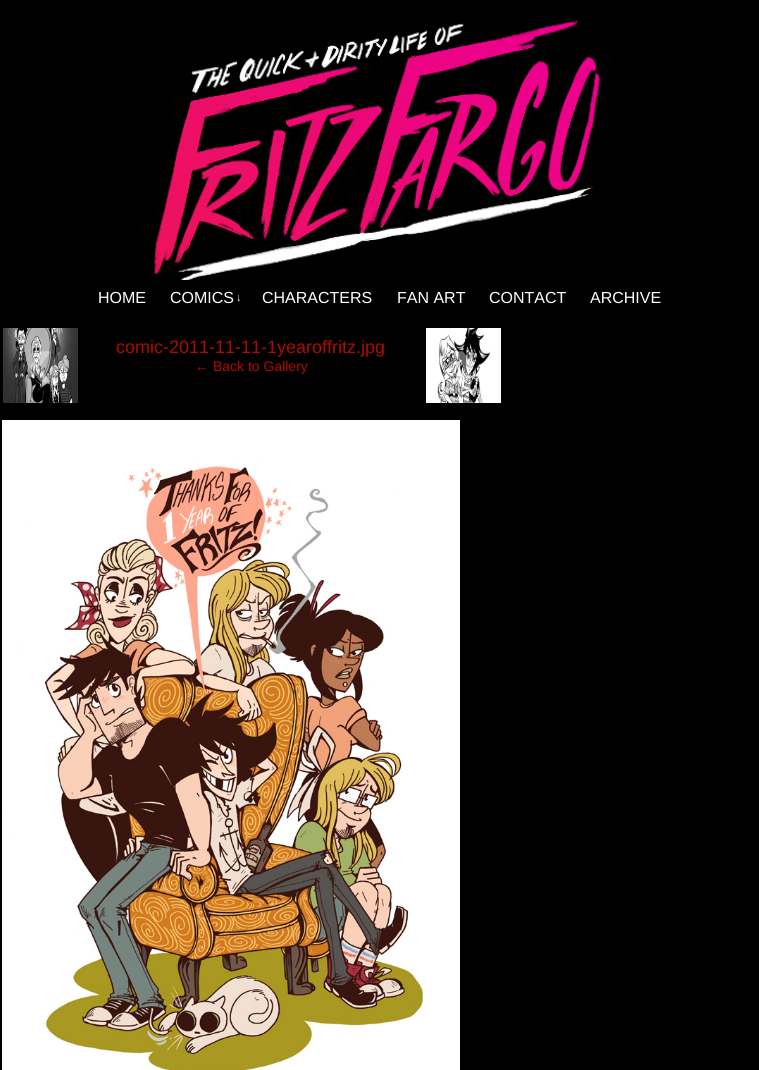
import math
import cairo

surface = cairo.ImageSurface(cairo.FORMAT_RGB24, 759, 1070)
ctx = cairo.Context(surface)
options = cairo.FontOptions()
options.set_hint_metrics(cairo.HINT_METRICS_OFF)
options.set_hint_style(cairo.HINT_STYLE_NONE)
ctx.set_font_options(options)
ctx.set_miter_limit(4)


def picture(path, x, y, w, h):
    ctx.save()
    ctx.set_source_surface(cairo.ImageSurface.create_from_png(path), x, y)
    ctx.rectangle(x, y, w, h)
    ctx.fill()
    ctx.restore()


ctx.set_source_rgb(0, 0, 0)
ctx.paint()
picture("img1.png", 143, 20, 457, 260)
ctx.select_font_face("Liberation Sans")
ctx.set_font_size(16)
ctx.set_source_rgb(1, 1, 1)
ctx.move_to(98, 303)
ctx.show_text("HOME")
ctx.move_to(170, 303)
ctx.show_text("COMICS")
ctx.set_font_size(11)
ctx.move_to(236, 301)
ctx.show_text("↓")
ctx.set_font_size(16)
ctx.move_to(262, 303)
ctx.show_text("CHARACTERS")
ctx.move_to(397, 303)
ctx.show_text("FAN ART")
ctx.move_to(489, 303)
ctx.show_text("CONTACT")
ctx.move_to(590, 303)
ctx.show_text("ARCHIVE")
picture("img2.png", 3, 328, 75, 75)
ctx.select_font_face("Liberation Sans", cairo.FONT_SLANT_NORMAL, cairo.FONT_WEIGHT_BOLD)
ctx.set_font_size(80)
ctx.move_to(27, 388)
ctx.show_text("‹")
picture("img3.png", 30, 351, 21, 32)
ctx.select_font_face("Liberation Sans")
ctx.set_font_size(18)
ctx.set_source_rgb(0.69, 0.043, 0)
ctx.move_to(116, 353)
ctx.show_text("comic-2011-11-11-1yearoffritz.jpg")
ctx.set_font_size(14)
ctx.move_to(195, 371)
ctx.show_text("← Back to Gallery")
picture("img4.png", 426, 328, 75, 75)
ctx.select_font_face("Liberation Sans", cairo.FONT_SLANT_NORMAL, cairo.FONT_WEIGHT_BOLD)
ctx.set_font_size(80)
ctx.set_source_rgb(1, 1, 1)
ctx.move_to(450, 388)
ctx.show_text("›")
picture("img5.png", 454, 351, 20, 32)
picture("img6.png", 2, 420, 458, 650)
surface.write_to_png("page.png")
